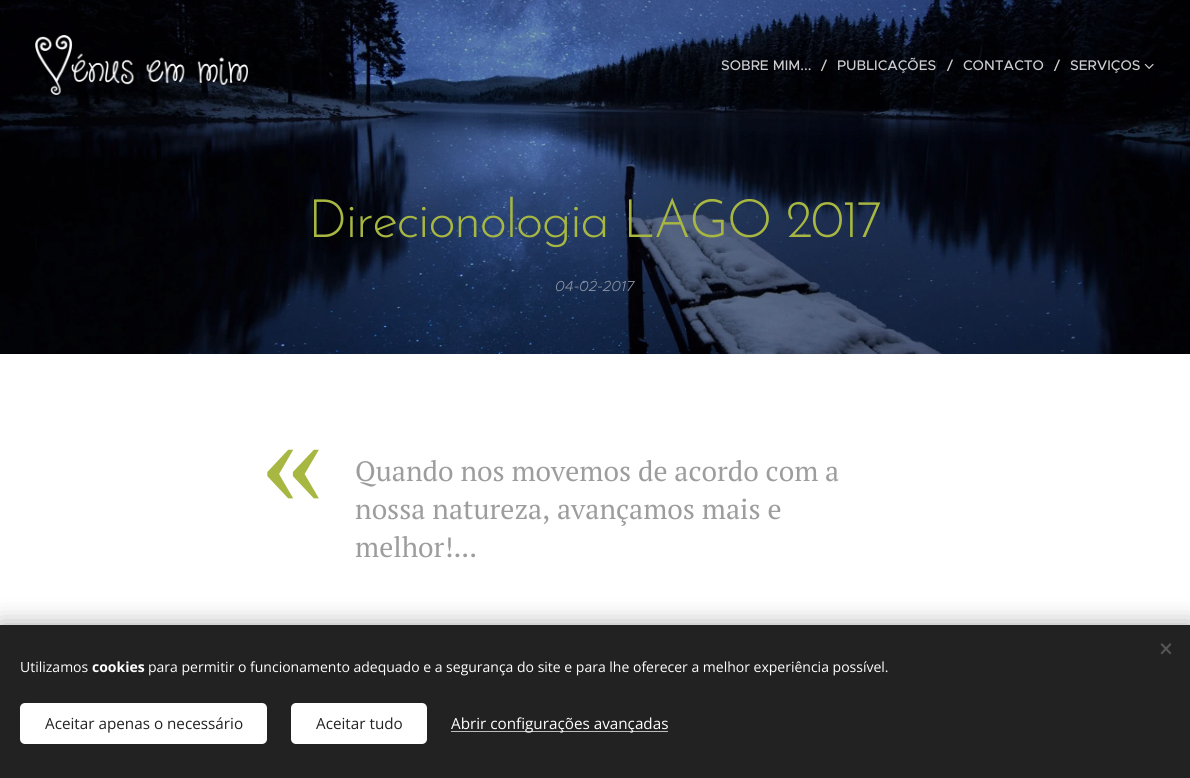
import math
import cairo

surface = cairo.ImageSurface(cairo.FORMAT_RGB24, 1190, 778)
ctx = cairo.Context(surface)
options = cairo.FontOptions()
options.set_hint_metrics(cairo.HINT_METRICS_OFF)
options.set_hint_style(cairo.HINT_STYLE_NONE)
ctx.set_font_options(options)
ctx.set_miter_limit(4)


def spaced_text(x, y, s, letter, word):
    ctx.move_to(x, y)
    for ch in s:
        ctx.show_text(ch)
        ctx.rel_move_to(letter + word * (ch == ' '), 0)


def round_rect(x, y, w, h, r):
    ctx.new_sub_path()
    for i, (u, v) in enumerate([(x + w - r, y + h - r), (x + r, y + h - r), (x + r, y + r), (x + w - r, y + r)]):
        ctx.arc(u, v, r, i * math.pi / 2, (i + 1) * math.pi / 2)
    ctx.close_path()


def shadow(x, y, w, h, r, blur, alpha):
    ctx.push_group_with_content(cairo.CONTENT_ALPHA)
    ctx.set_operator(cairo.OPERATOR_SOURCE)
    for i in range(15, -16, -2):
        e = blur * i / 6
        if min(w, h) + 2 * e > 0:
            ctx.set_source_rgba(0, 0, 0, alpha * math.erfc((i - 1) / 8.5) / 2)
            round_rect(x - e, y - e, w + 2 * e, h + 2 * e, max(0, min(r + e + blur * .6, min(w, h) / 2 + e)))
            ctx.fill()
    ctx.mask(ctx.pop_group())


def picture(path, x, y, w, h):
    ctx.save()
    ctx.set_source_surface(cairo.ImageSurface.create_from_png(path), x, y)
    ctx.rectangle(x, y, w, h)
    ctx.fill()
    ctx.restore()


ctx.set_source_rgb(1, 1, 1)
ctx.paint()
picture("img3.png", 0, 0, 1190, 354)
picture("img1.png", 35, 35, 213, 60)
ctx.select_font_face("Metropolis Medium")
ctx.set_font_size(14)
ctx.set_source_rgb(0.804, 0.804, 0.812)
ctx.move_to(721, 70)
ctx.show_text("SOBRE MIM...")
ctx.move_to(821, 70)
ctx.show_text("/")
ctx.move_to(837, 70)
ctx.show_text("PUBLICAÇÕES")
ctx.move_to(947, 70)
ctx.show_text("/")
ctx.move_to(963, 70)
ctx.show_text("CONTACTO")
ctx.move_to(1054, 70)
ctx.show_text("/")
ctx.move_to(1070, 70)
ctx.show_text("SERVIÇOS")
picture("img2.png", 1144, 63, 10, 6)
ctx.select_font_face("Josefin Sans Light")
ctx.set_font_size(53)
ctx.set_source_rgb(0.659, 0.718, 0.255)
spaced_text(308, 237, "Direcionologia LAGO 2017", -1.6, 0)
ctx.select_font_face("Metropolis Light", cairo.FONT_SLANT_ITALIC)
ctx.set_font_size(14.5)
ctx.set_source_rgb(0.545, 0.58, 0.647)
ctx.move_to(555, 291)
ctx.show_text("04-02-2017")
ctx.select_font_face("Liberation Serif")
ctx.set_font_size(128)
ctx.set_source_rgb(0.659, 0.718, 0.255)
ctx.move_to(260, 503)
ctx.show_text("«")
ctx.select_font_face("PT Serif")
ctx.set_font_size(28)
ctx.set_source_rgb(0.616, 0.616, 0.616)
ctx.move_to(355, 481)
ctx.show_text("Quando nos movemos de acordo com a")
ctx.move_to(355, 519)
ctx.show_text("nossa natureza, avançamos mais e")
ctx.move_to(355, 557)
ctx.show_text("melhor!...")
ctx.set_source_rgb(0, 0, 0)
shadow(0, 625, 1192, 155, 0, 12.5, 0.33)
ctx.set_source_rgb(0.133, 0.133, 0.133)
ctx.rectangle(0, 625, 1190, 153)
ctx.fill()
ctx.set_source_rgb(0.333, 0.333, 0.333)
ctx.new_path()
ctx.move_to(1160.5, 653)
ctx.line_to(1170, 643)
ctx.line_to(1171.5, 644.5)
ctx.line_to(1162, 654.5)
ctx.close_path()
ctx.fill()
ctx.new_path()
ctx.move_to(1162, 643)
ctx.line_to(1171.5, 653)
ctx.line_to(1170, 654.5)
ctx.line_to(1160.5, 644.5)
ctx.close_path()
ctx.fill()
ctx.select_font_face("Open Sans")
ctx.set_font_size(14)
ctx.set_source_rgb(1, 1, 1)
ctx.move_to(20, 672)
ctx.show_text("Utilizamos")
ctx.select_font_face("Open Sans", cairo.FONT_SLANT_NORMAL, cairo.FONT_WEIGHT_BOLD)
ctx.move_to(92, 672)
ctx.show_text("cookies")
ctx.select_font_face("Open Sans")
ctx.move_to(148, 672)
ctx.show_text("para permitir o funcionamento adequado e a segurança do site e para lhe oferecer a melhor experiência possível.")
round_rect(20, 703, 247, 41, 5)
ctx.fill()
ctx.set_font_size(15.25)
ctx.set_source_rgb(0.133, 0.133, 0.133)
ctx.move_to(45, 729)
ctx.show_text("Aceitar apenas o necessário")
ctx.set_source_rgb(1, 1, 1)
round_rect(291, 703, 136, 41, 5)
ctx.fill()
ctx.set_source_rgb(0.133, 0.133, 0.133)
ctx.move_to(316, 729)
ctx.show_text("Aceitar tudo")
ctx.set_source_rgb(0.741, 0.741, 0.741)
ctx.rectangle(451, 731, 217, 1)
ctx.fill()
ctx.set_source_rgb(1, 1, 1)
ctx.move_to(451, 729)
ctx.show_text("Abrir configurações avançadas")
surface.write_to_png("page.png")
